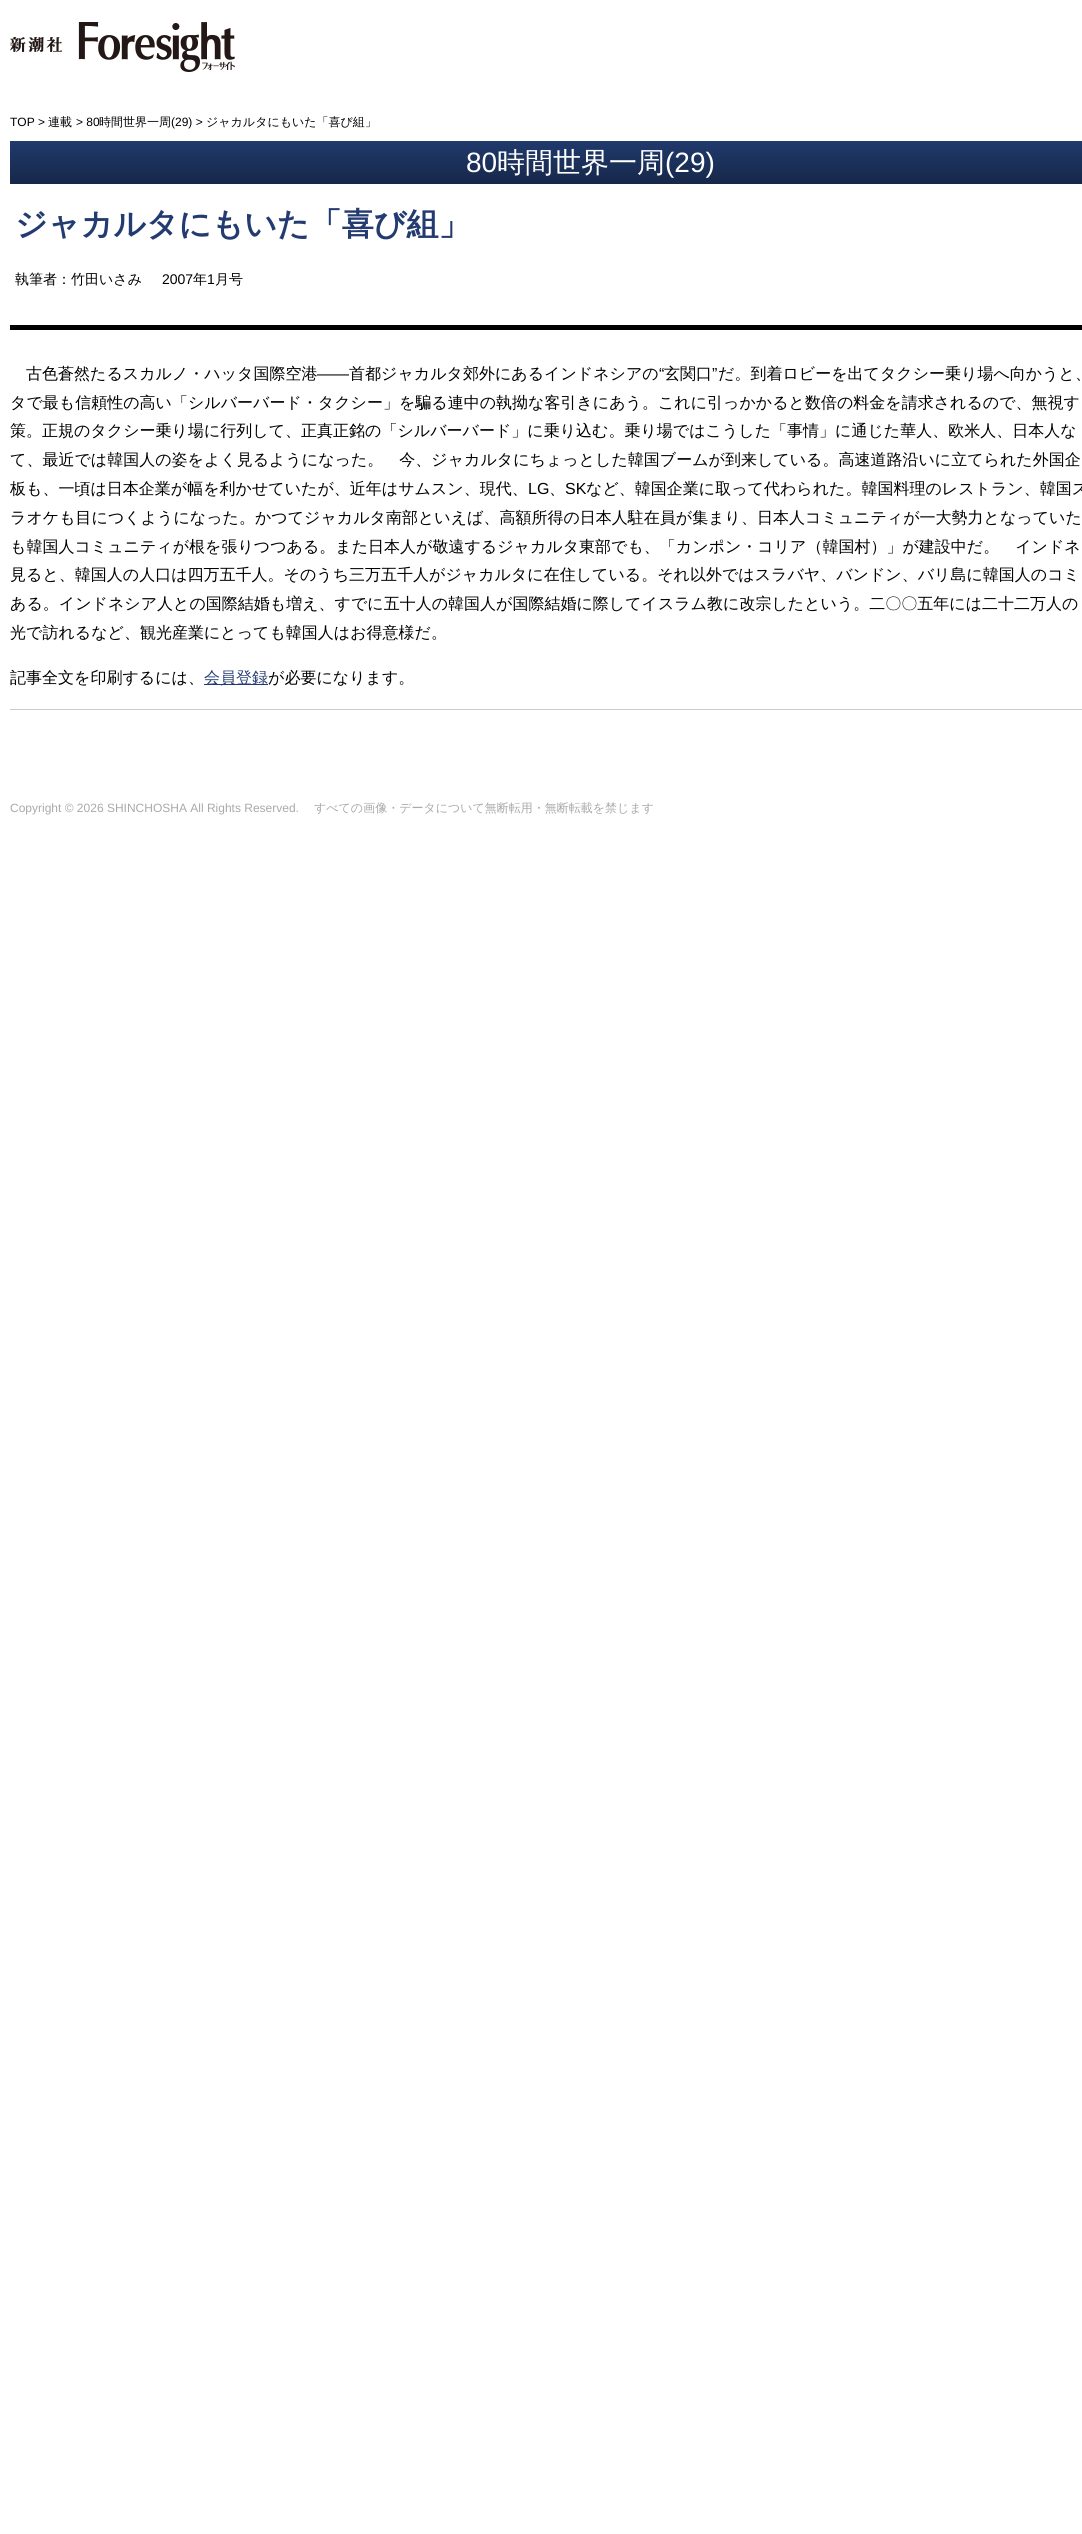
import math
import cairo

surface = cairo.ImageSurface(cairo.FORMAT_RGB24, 1082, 2534)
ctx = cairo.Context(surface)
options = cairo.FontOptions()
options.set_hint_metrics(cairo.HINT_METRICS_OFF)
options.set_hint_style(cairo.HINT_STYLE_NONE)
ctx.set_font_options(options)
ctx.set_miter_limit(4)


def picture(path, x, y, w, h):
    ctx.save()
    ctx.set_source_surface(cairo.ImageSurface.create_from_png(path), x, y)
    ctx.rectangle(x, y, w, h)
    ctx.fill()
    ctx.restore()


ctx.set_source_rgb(1, 1, 1)
ctx.paint()
picture("img1.png", 10, 22, 225, 50)
ctx.select_font_face("Liberation Sans")
ctx.set_font_size(12)
ctx.set_source_rgb(0, 0, 0)
ctx.move_to(10, 126)
ctx.show_text("TOP >")
ctx.select_font_face("WenQuanYi Zen Hei Medium")
ctx.move_to(48, 126)
ctx.show_text("連載")
ctx.select_font_face("Liberation Sans")
ctx.move_to(76, 126)
ctx.show_text("> 80")
ctx.select_font_face("WenQuanYi Zen Hei Medium")
ctx.move_to(99, 126)
ctx.show_text("時間世界一周")
ctx.select_font_face("Liberation Sans")
ctx.move_to(171, 126)
ctx.show_text("(29) >")
ctx.select_font_face("WenQuanYi Zen Hei Medium")
ctx.move_to(206, 126)
ctx.show_text("ジャカルタにもいた「喜び組」")
gradient = cairo.LinearGradient(590, 141, 590, 184)
gradient.add_color_stop_rgba(0, 0.125, 0.227, 0.427, 1)
gradient.add_color_stop_rgba(1, 0.09, 0.153, 0.286, 1)
ctx.set_source(gradient)
ctx.rectangle(10, 141, 1072, 43)
ctx.fill()
ctx.select_font_face("Liberation Sans")
ctx.set_font_size(28)
ctx.set_source_rgb(1, 1, 1)
ctx.move_to(466, 172)
ctx.show_text("80")
ctx.select_font_face("WenQuanYi Zen Hei Medium")
ctx.move_to(497, 172)
ctx.show_text("時間世界一周")
ctx.select_font_face("Liberation Sans")
ctx.move_to(665, 172)
ctx.show_text("(29)")
ctx.set_source_rgb(0, 0, 0)
ctx.rectangle(10, 325, 1072, 5)
ctx.fill()
ctx.select_font_face("WenQuanYi Zen Hei", cairo.FONT_SLANT_NORMAL, cairo.FONT_WEIGHT_BOLD)
ctx.set_font_size(32)
ctx.set_source_rgb(0.137, 0.231, 0.443)
ctx.move_to(15, 235)
ctx.show_text("ジャカルタにもいた「喜び組」")
ctx.select_font_face("WenQuanYi Zen Hei Medium")
ctx.set_font_size(14)
ctx.set_source_rgb(0, 0, 0)
ctx.move_to(15, 284)
ctx.show_text("執筆者：竹田いさみ")
ctx.select_font_face("Liberation Sans")
ctx.move_to(162, 284)
ctx.show_text("2007")
ctx.select_font_face("WenQuanYi Zen Hei Medium")
ctx.move_to(193, 284)
ctx.show_text("年")
ctx.select_font_face("Liberation Sans")
ctx.move_to(207, 284)
ctx.show_text("1")
ctx.select_font_face("WenQuanYi Zen Hei Medium")
ctx.move_to(215, 284)
ctx.show_text("月号")
ctx.set_source_rgb(0.8, 0.8, 0.8)
ctx.rectangle(10, 709, 1072, 1)
ctx.fill()
ctx.set_font_size(16)
ctx.set_source_rgb(0, 0, 0)
ctx.move_to(26, 379)
ctx.show_text("古色蒼然たるスカルノ・ハッタ国際空港")
ctx.select_font_face("Liberation Sans")
ctx.move_to(317, 379)
ctx.show_text("――")
ctx.select_font_face("WenQuanYi Zen Hei Medium")
ctx.move_to(349, 379)
ctx.show_text("首都ジャカルタ郊外にあるインドネシアの")
ctx.select_font_face("Liberation Sans")
ctx.move_to(659, 379)
ctx.show_text("“")
ctx.select_font_face("WenQuanYi Zen Hei Medium")
ctx.move_to(664, 379)
ctx.show_text("玄関口")
ctx.select_font_face("Liberation Sans")
ctx.move_to(712, 379)
ctx.show_text("”")
ctx.select_font_face("WenQuanYi Zen Hei Medium")
ctx.move_to(718, 379)
ctx.show_text("だ。到着ロビーを出てタクシー乗り場へ向かうと、")
ctx.move_to(10, 408)
ctx.show_text("タで最も信頼性の高い「シルバーバード・タクシー」を騙る連中の執拗な客引きにあう。これに引っかかると数倍の料金を請求されるので、無視す")
ctx.move_to(10, 436)
ctx.show_text("策。正規のタクシー乗り場に行列して、正真正銘の「シルバーバード」に乗り込む。乗り場ではこうした「事情」に通じた華人、欧米人、日本人な")
ctx.move_to(10, 465)
ctx.show_text("て、最近では韓国人の姿をよく見るようになった。　今、ジャカルタにちょっとした韓国ブームが到来している。高速道路沿いに立てられた外国企")
ctx.move_to(10, 494)
ctx.show_text("板も、一頃は日本企業が幅を利かせていたが、近年はサムスン、現代、")
ctx.select_font_face("Liberation Sans")
ctx.move_to(528, 494)
ctx.show_text("LG")
ctx.select_font_face("WenQuanYi Zen Hei Medium")
ctx.move_to(549, 494)
ctx.show_text("、")
ctx.select_font_face("Liberation Sans")
ctx.move_to(565, 494)
ctx.show_text("SK")
ctx.select_font_face("WenQuanYi Zen Hei Medium")
ctx.move_to(586, 494)
ctx.show_text("など、韓国企業に取って代わられた。韓国料理のレストラン、韓国ス")
ctx.move_to(10, 523)
ctx.show_text("ラオケも目につくようになった。かつてジャカルタ南部といえば、高額所得の日本人駐在員が集まり、日本人コミュニティが一大勢力となっていた")
ctx.move_to(10, 552)
ctx.show_text("も韓国人コミュニティが根を張りつつある。また日本人が敬遠するジャカルタ東部でも、「カンポン・コリア（韓国村）」が建設中だ。　インドネ")
ctx.move_to(10, 580)
ctx.show_text("見ると、韓国人の人口は四万五千人。そのうち三万五千人がジャカルタに在住している。それ以外ではスラバヤ、バンドン、バリ島に韓国人のコミ")
ctx.move_to(10, 609)
ctx.show_text("ある。インドネシア人との国際結婚も増え、すでに五十人の韓国人が国際結婚に際してイスラム教に改宗したという。二〇〇五年には二十二万人の")
ctx.move_to(10, 638)
ctx.show_text("光で訪れるなど、観光産業にとっても韓国人はお得意様だ。")
ctx.move_to(10, 683)
ctx.show_text("記事全文を印刷するには、")
ctx.set_source_rgb(0.137, 0.231, 0.443)
ctx.rectangle(204, 684, 64, 1)
ctx.fill()
ctx.move_to(204, 683)
ctx.show_text("会員登録")
ctx.set_source_rgb(0, 0, 0)
ctx.move_to(268, 683)
ctx.show_text("が必要になります。")
ctx.select_font_face("Liberation Sans")
ctx.set_font_size(12)
ctx.set_source_rgb(0.663, 0.663, 0.663)
ctx.move_to(10, 812)
ctx.show_text("Copyright © 2026 SHINCHOSHA All Rights Reserved.")
ctx.select_font_face("WenQuanYi Zen Hei Medium")
ctx.move_to(314, 812)
ctx.show_text("すべての画像・データについて無断転用・無断転載を禁じます")
surface.write_to_png("page.png")
